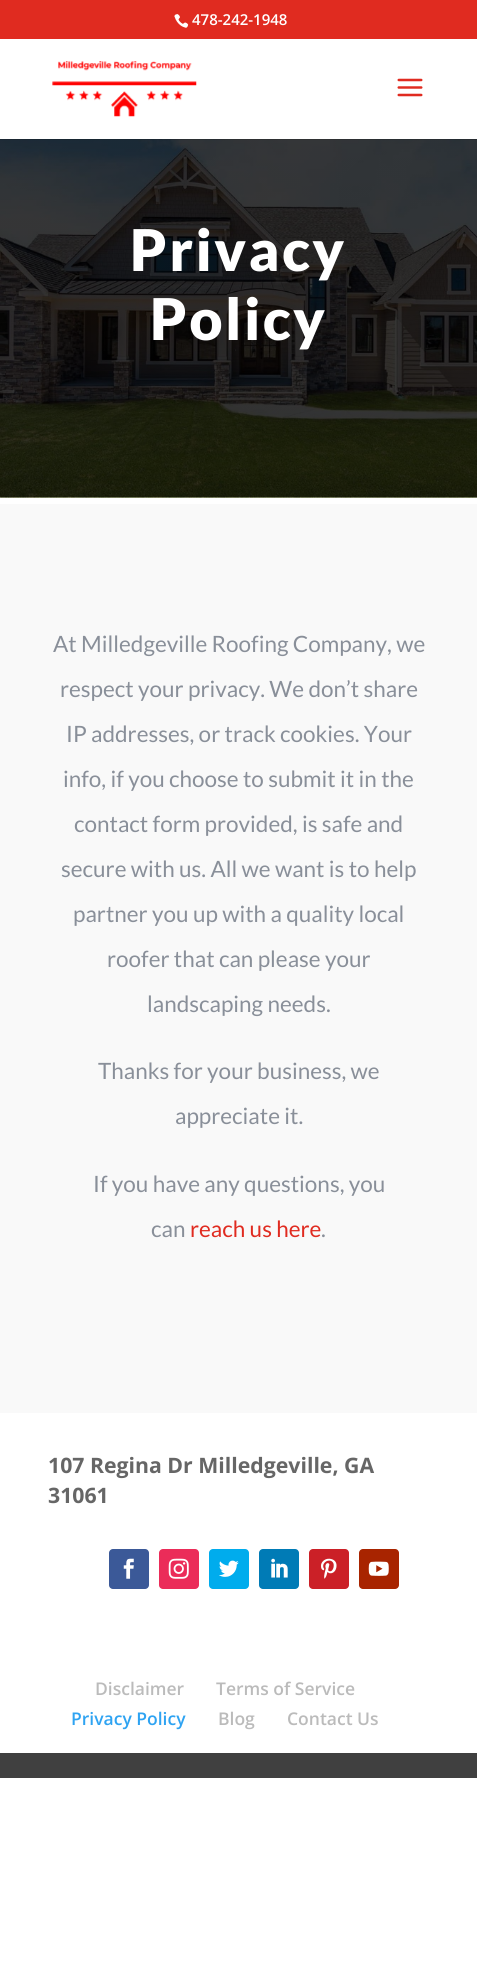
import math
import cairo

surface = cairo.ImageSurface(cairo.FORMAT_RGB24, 477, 1965)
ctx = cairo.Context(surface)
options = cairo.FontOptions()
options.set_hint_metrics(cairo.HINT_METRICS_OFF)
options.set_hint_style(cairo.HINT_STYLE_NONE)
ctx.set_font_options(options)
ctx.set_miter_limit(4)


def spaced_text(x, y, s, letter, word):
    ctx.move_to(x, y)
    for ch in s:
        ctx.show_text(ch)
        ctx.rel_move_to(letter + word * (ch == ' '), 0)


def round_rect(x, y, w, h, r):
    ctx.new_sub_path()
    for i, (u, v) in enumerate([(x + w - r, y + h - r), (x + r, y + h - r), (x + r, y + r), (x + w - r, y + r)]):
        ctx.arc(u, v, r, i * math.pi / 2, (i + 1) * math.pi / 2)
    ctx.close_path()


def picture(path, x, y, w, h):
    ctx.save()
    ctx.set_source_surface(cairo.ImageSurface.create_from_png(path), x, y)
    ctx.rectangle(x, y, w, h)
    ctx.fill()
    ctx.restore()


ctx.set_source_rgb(1, 1, 1)
ctx.paint()
ctx.set_source_rgb(0.878, 0.169, 0.125)
ctx.rectangle(0, 0, 477, 39)
ctx.fill()
picture("img1.png", 174, 14, 15, 14)
ctx.select_font_face("Open Sans SemiBold")
ctx.set_font_size(15)
ctx.set_source_rgb(1, 1, 1)
ctx.move_to(192, 25)
ctx.show_text("478-242-1948")
picture("img4.png", 0, 139, 477, 359)
ctx.set_source_rgba(0, 0, 0, 0.1)
ctx.new_path()
ctx.move_to(0, 139)
ctx.line_to(0, 140)
ctx.line_to(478, 140)
ctx.line_to(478, 40)
ctx.line_to(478, 139)
ctx.close_path()
ctx.fill()
picture("img2.png", 52, 61, 145, 56)
picture("img3.png", 397, 78, 26, 19)
ctx.select_font_face("Lato Black")
ctx.set_font_size(57.5)
ctx.set_source_rgb(1, 1, 1)
spaced_text(130, 271, "Privacy", 2.5, 0)
spaced_text(150, 340, "Policy", 2.5, 0)
ctx.set_source_rgb(0.973, 0.973, 0.973)
ctx.rectangle(0, 504, 477, 909)
ctx.fill()
ctx.select_font_face("Lato")
ctx.set_font_size(22.5)
ctx.set_source_rgb(0.537, 0.561, 0.6)
ctx.move_to(53, 652)
ctx.show_text("At Milledgeville Roofing Company, we")
ctx.move_to(60, 697)
ctx.show_text("respect your privacy. We don’t share")
ctx.move_to(66, 742)
ctx.show_text("IP addresses, or track cookies. Your")
ctx.move_to(63, 787)
ctx.show_text("info, if you choose to submit it in the")
ctx.move_to(74, 832)
ctx.show_text("contact form provided, is safe and")
ctx.move_to(61, 877)
ctx.show_text("secure with us. All we want is to help")
ctx.move_to(73, 922)
ctx.show_text("partner you up with a quality local")
ctx.move_to(107, 967)
ctx.show_text("roofer that can please your")
ctx.move_to(147, 1012)
ctx.show_text("landscaping needs.")
ctx.move_to(98, 1079)
ctx.show_text("Thanks for your business, we")
ctx.move_to(175, 1124)
ctx.show_text("appreciate it.")
ctx.move_to(93, 1192)
ctx.show_text("If you have any questions, you")
ctx.move_to(151, 1237)
ctx.show_text("can")
ctx.set_source_rgb(0.878, 0.169, 0.125)
ctx.move_to(190, 1237)
ctx.show_text("reach us here")
ctx.set_source_rgb(0.537, 0.561, 0.6)
ctx.move_to(321, 1237)
ctx.show_text(".")
ctx.select_font_face("Open Sans", cairo.FONT_SLANT_NORMAL, cairo.FONT_WEIGHT_BOLD)
ctx.set_font_size(21.25)
ctx.set_source_rgb(0.4, 0.4, 0.4)
ctx.move_to(48, 1473)
ctx.show_text("107 Regina Dr Milledgeville, GA")
ctx.move_to(48, 1503)
ctx.show_text("31061")
ctx.set_source_rgb(0.231, 0.349, 0.596)
round_rect(109, 1549, 40, 40, 4)
ctx.fill()
picture("img5.png", 123, 1558, 11, 21)
ctx.set_source_rgb(0.918, 0.173, 0.349)
round_rect(159, 1549, 40, 40, 4)
ctx.fill()
picture("img6.png", 168, 1558, 21, 21)
ctx.set_source_rgb(0, 0.675, 0.929)
round_rect(209, 1549, 40, 40, 4)
ctx.fill()
picture("img7.png", 219, 1560, 20, 17)
ctx.set_source_rgb(0, 0.482, 0.714)
round_rect(259, 1549, 40, 40, 4)
ctx.fill()
picture("img8.png", 271, 1558, 17, 20)
ctx.set_source_rgb(0.796, 0.125, 0.153)
round_rect(309, 1549, 40, 40, 4)
ctx.fill()
picture("img9.png", 321, 1558, 16, 21)
ctx.set_source_rgb(0.659, 0.141, 0)
round_rect(359, 1549, 40, 40, 4)
ctx.fill()
picture("img10.png", 368, 1561, 21, 15)
ctx.select_font_face("Open Sans SemiBold")
ctx.set_font_size(17.5)
ctx.set_source_rgb(0.733, 0.733, 0.733)
ctx.move_to(95, 1695)
ctx.show_text("Disclaimer")
ctx.move_to(216, 1695)
ctx.show_text("Terms of Service")
ctx.set_source_rgb(0.18, 0.639, 0.949)
ctx.move_to(71, 1725)
ctx.show_text("Privacy Policy")
ctx.set_source_rgb(0.733, 0.733, 0.733)
ctx.move_to(218, 1725)
ctx.show_text("Blog")
ctx.move_to(287, 1725)
ctx.show_text("Contact Us")
ctx.set_source_rgb(0.251, 0.251, 0.251)
ctx.rectangle(0, 1753, 477, 25)
ctx.fill()
surface.write_to_png("page.png")
